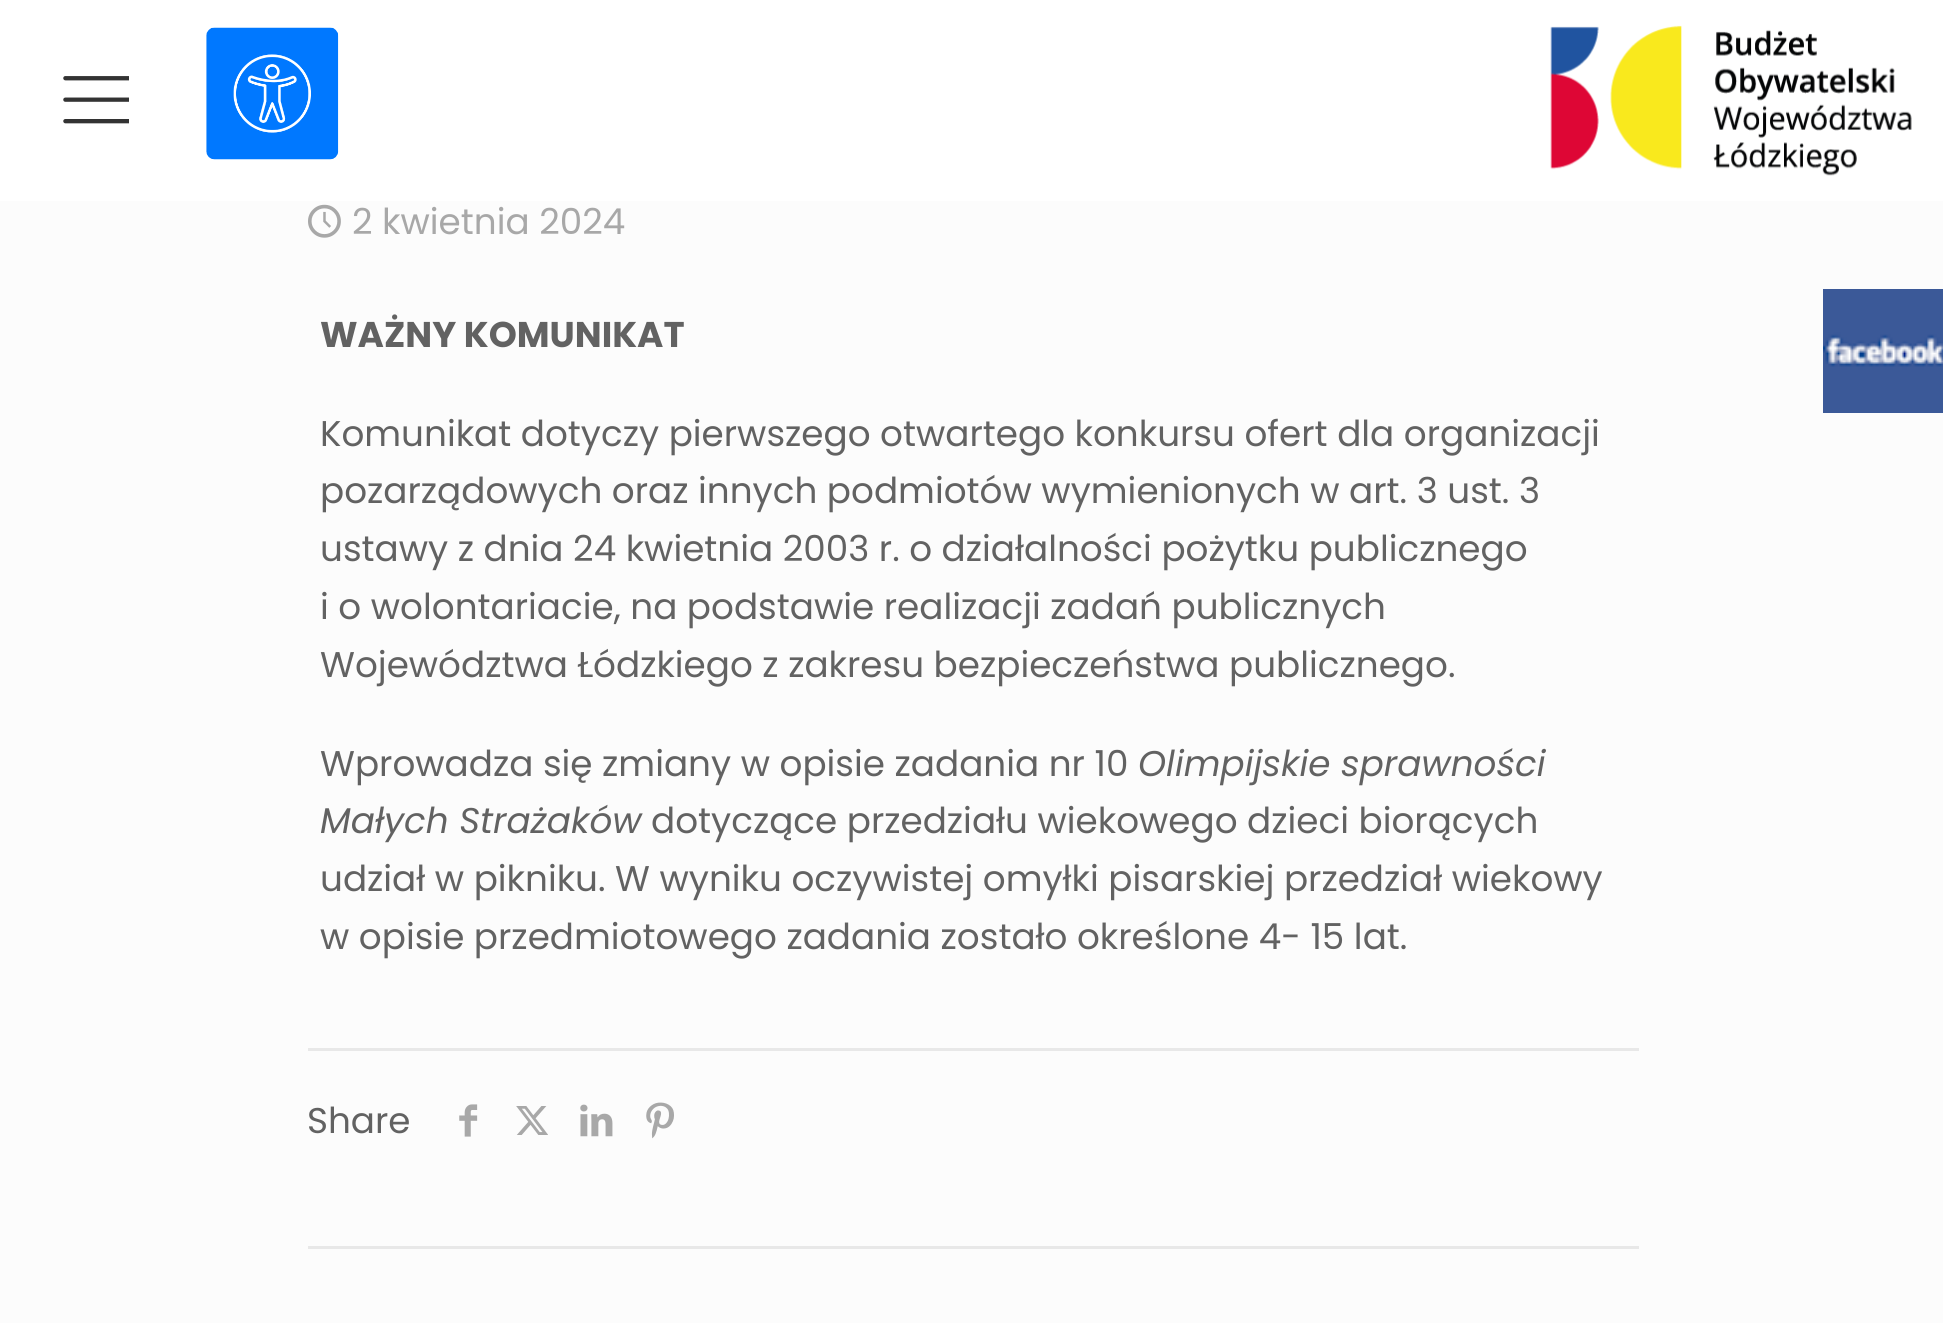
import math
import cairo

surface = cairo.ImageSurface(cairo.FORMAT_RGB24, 1943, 1323)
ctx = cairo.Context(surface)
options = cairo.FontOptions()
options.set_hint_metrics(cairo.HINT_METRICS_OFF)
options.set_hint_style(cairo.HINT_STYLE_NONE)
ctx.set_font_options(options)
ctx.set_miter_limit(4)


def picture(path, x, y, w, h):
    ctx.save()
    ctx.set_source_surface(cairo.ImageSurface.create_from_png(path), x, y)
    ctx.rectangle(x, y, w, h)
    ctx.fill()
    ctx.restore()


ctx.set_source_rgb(0.988, 0.988, 0.988)
ctx.paint()
ctx.set_source_rgb(1, 1, 1)
ctx.rectangle(0, 0, 1943, 201)
ctx.fill()
picture("img1.png", 206, 27, 133, 133)
picture("img2.png", 63, 76, 66, 48)
picture("img3.png", 1550, 25, 362, 151)
picture("img4.png", 308, 204, 33, 34)
ctx.select_font_face("Poppins")
ctx.set_font_size(35.75)
ctx.set_source_rgb(0.659, 0.659, 0.659)
ctx.move_to(352, 234)
ctx.show_text("2 kwietnia 2024")
ctx.select_font_face("Poppins", cairo.FONT_SLANT_NORMAL, cairo.FONT_WEIGHT_BOLD)
ctx.set_source_rgb(0.384, 0.384, 0.384)
ctx.move_to(320, 347)
ctx.show_text("WAŻNY KOMUNIKAT")
ctx.select_font_face("Poppins")
ctx.move_to(320, 446)
ctx.show_text("Komunikat dotyczy pierwszego otwartego konkursu ofert dla organizacji")
ctx.move_to(320, 503)
ctx.show_text("pozarządowych oraz innych podmiotów wymienionych w art. 3 ust. 3")
ctx.move_to(320, 561)
ctx.show_text("ustawy z dnia 24 kwietnia 2003 r. o działalności pożytku publicznego")
ctx.move_to(320, 619)
ctx.show_text("i o wolontariacie, na podstawie realizacji zadań publicznych")
ctx.move_to(320, 677)
ctx.show_text("Województwa Łódzkiego z zakresu bezpieczeństwa publicznego.")
ctx.move_to(320, 776)
ctx.show_text("Wprowadza się zmiany w opisie zadania nr 10")
ctx.select_font_face("Poppins", cairo.FONT_SLANT_ITALIC)
ctx.move_to(1138, 776)
ctx.show_text("Olimpijskie sprawności")
ctx.move_to(320, 833)
ctx.show_text("Małych Strażaków")
ctx.select_font_face("Poppins")
ctx.move_to(651, 833)
ctx.show_text("dotyczące przedziału wiekowego dzieci biorących")
ctx.move_to(320, 891)
ctx.show_text("udział w pikniku. W wyniku oczywistej omyłki pisarskiej przedział wiekowy")
ctx.move_to(320, 949)
ctx.show_text("w opisie przedmiotowego zadania zostało określone 4- 15 lat.")
ctx.set_source_rgb(0.91, 0.91, 0.91)
ctx.rectangle(308, 1048, 1331, 3)
ctx.fill()
ctx.set_source_rgb(0.384, 0.384, 0.384)
ctx.move_to(307, 1133)
ctx.show_text("Share")
picture("img5.png", 459, 1104, 19, 33)
picture("img6.png", 516, 1106, 32, 29)
picture("img7.png", 580, 1104, 33, 33)
picture("img8.png", 646, 1102, 28, 37)
ctx.set_source_rgb(0.91, 0.91, 0.91)
ctx.rectangle(308, 1246, 1331, 3)
ctx.fill()
picture("img9.png", 1823, 289, 120, 124)
surface.write_to_png("page.png")
